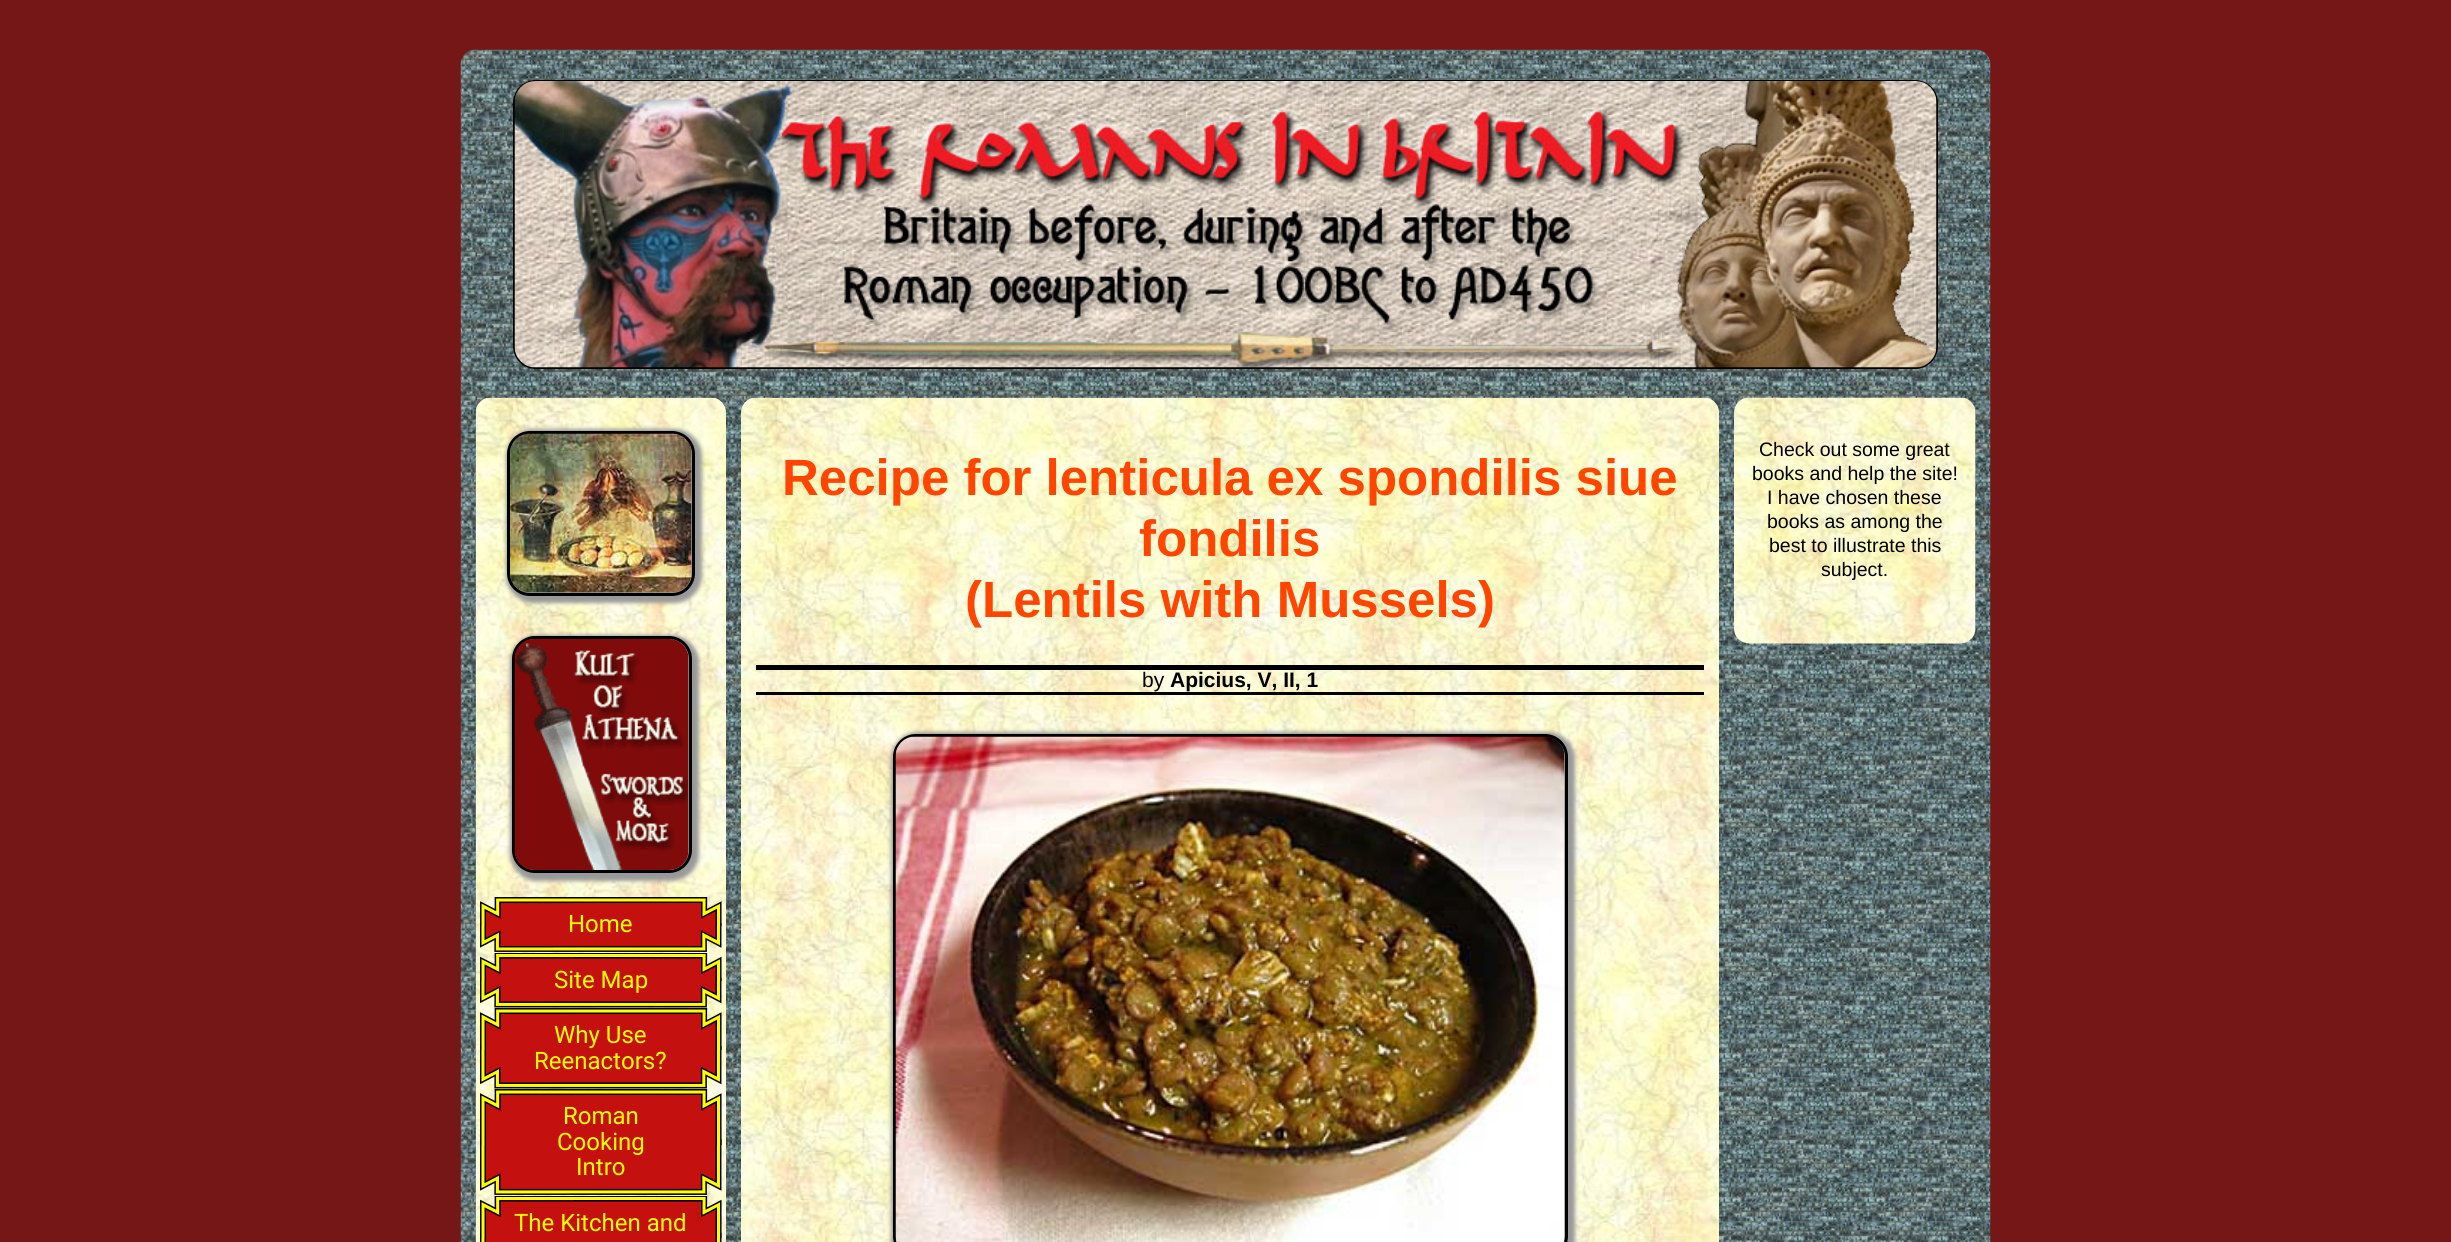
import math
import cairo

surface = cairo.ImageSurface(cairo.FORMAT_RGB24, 2451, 1242)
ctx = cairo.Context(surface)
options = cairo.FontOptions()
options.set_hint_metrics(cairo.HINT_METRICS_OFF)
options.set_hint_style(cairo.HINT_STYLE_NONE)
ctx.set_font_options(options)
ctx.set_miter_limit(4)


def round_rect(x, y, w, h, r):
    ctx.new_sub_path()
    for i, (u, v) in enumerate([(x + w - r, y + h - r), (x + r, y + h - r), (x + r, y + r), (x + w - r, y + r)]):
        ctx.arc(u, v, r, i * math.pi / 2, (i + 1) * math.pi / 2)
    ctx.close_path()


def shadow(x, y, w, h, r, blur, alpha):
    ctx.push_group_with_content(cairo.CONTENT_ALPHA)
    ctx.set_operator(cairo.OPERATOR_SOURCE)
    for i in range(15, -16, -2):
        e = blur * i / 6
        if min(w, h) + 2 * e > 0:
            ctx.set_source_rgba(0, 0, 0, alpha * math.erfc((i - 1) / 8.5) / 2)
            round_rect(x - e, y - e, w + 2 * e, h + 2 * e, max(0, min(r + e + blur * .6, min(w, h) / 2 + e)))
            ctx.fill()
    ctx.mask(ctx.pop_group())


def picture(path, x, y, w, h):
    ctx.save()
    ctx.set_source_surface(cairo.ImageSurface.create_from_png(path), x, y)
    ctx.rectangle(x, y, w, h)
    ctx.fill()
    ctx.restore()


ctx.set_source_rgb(0.459, 0.09, 0.09)
ctx.paint()
picture("img1.png", 460, 49, 1531, 1193)
round_rect(514, 81, 1423, 287, 22)
ctx.set_source_rgb(0, 0, 0)
ctx.stroke()
picture("img2.png", 514, 81, 1423, 287)
picture("img3.png", 741, 397, 978, 845)
ctx.select_font_face("Liberation Sans", cairo.FONT_SLANT_NORMAL, cairo.FONT_WEIGHT_BOLD)
ctx.set_font_size(51)
ctx.set_source_rgb(1, 0.271, 0)
ctx.move_to(782, 495)
ctx.show_text("Recipe for lenticula ex spondilis siue")
ctx.move_to(1139, 556)
ctx.show_text("fondilis")
ctx.move_to(965, 617)
ctx.show_text("(Lentils with Mussels)")
ctx.set_source_rgb(0, 0, 0)
ctx.rectangle(756, 665, 948, 5)
ctx.fill()
ctx.rectangle(756, 692, 948, 3)
ctx.fill()
ctx.select_font_face("Liberation Sans")
ctx.set_font_size(21)
ctx.move_to(1142, 687)
ctx.show_text("by")
ctx.select_font_face("Liberation Sans", cairo.FONT_SLANT_NORMAL, cairo.FONT_WEIGHT_BOLD)
ctx.move_to(1170, 687)
ctx.show_text("Apicius, V, II, 1")
ctx.set_source_rgb(0.6, 0.6, 0.6)
shadow(891, 732, 684, 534, 27, 2, 1)
round_rect(894.5, 735.5, 672, 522, 21.5)
ctx.set_source_rgb(0, 0, 0)
ctx.set_line_width(3)
ctx.stroke()
picture("img4.png", 895, 736, 670, 506)
picture("img5.png", 1733, 397, 243, 247)
ctx.select_font_face("Liberation Sans")
ctx.set_font_size(19.5)
ctx.move_to(1759, 456)
ctx.show_text("Check out some great")
ctx.move_to(1752, 480)
ctx.show_text("books and help the site!")
ctx.move_to(1767, 504)
ctx.show_text("I have chosen these")
ctx.move_to(1767, 528)
ctx.show_text("books as among the")
ctx.move_to(1769, 552)
ctx.show_text("best to illustrate this")
ctx.move_to(1821, 576)
ctx.show_text("subject.")
picture("img6.png", 475, 397, 251, 845)
ctx.set_source_rgb(0.6, 0.6, 0.6)
shadow(506, 429, 196, 174, 27, 2, 1)
round_rect(508.5, 432.5, 185, 162, 21.5)
ctx.set_source_rgb(0, 0, 0)
ctx.stroke()
picture("img7.png", 510, 433, 182, 160)
ctx.set_source_rgb(0.6, 0.6, 0.6)
shadow(510, 635, 189, 246, 27, 2, 1)
round_rect(513.5, 637.5, 177, 234, 21.5)
ctx.set_source_rgb(0, 0, 0)
ctx.stroke()
picture("img8.png", 514, 639, 175, 231)
picture("img10.png", 480, 923, 242, 29)
picture("img9.png", 480, 897, 242, 29)
ctx.select_font_face("Roboto")
ctx.set_font_size(24)
ctx.set_source_rgb(1, 1, 0)
ctx.move_to(568, 932)
ctx.show_text("Home")
picture("img12.png", 480, 978, 242, 30)
picture("img11.png", 480, 953, 242, 28)
ctx.move_to(554, 988)
ctx.show_text("Site Map")
picture("img14.png", 480, 1046, 242, 43)
picture("img13.png", 480, 1008, 242, 42)
ctx.move_to(554, 1043)
ctx.show_text("Why Use")
ctx.move_to(534, 1069)
ctx.show_text("Reenactors?")
picture("img16.png", 480, 1139, 242, 56)
picture("img15.png", 480, 1089, 242, 56)
ctx.move_to(563, 1124)
ctx.show_text("Roman")
ctx.move_to(557, 1150)
ctx.show_text("Cooking")
ctx.move_to(576, 1175)
ctx.show_text("Intro")
picture("img18.png", 480, 1233, 242, 9)
picture("img17.png", 480, 1196, 242, 42)
ctx.move_to(514, 1231)
ctx.show_text("The Kitchen and")
surface.write_to_png("page.png")
